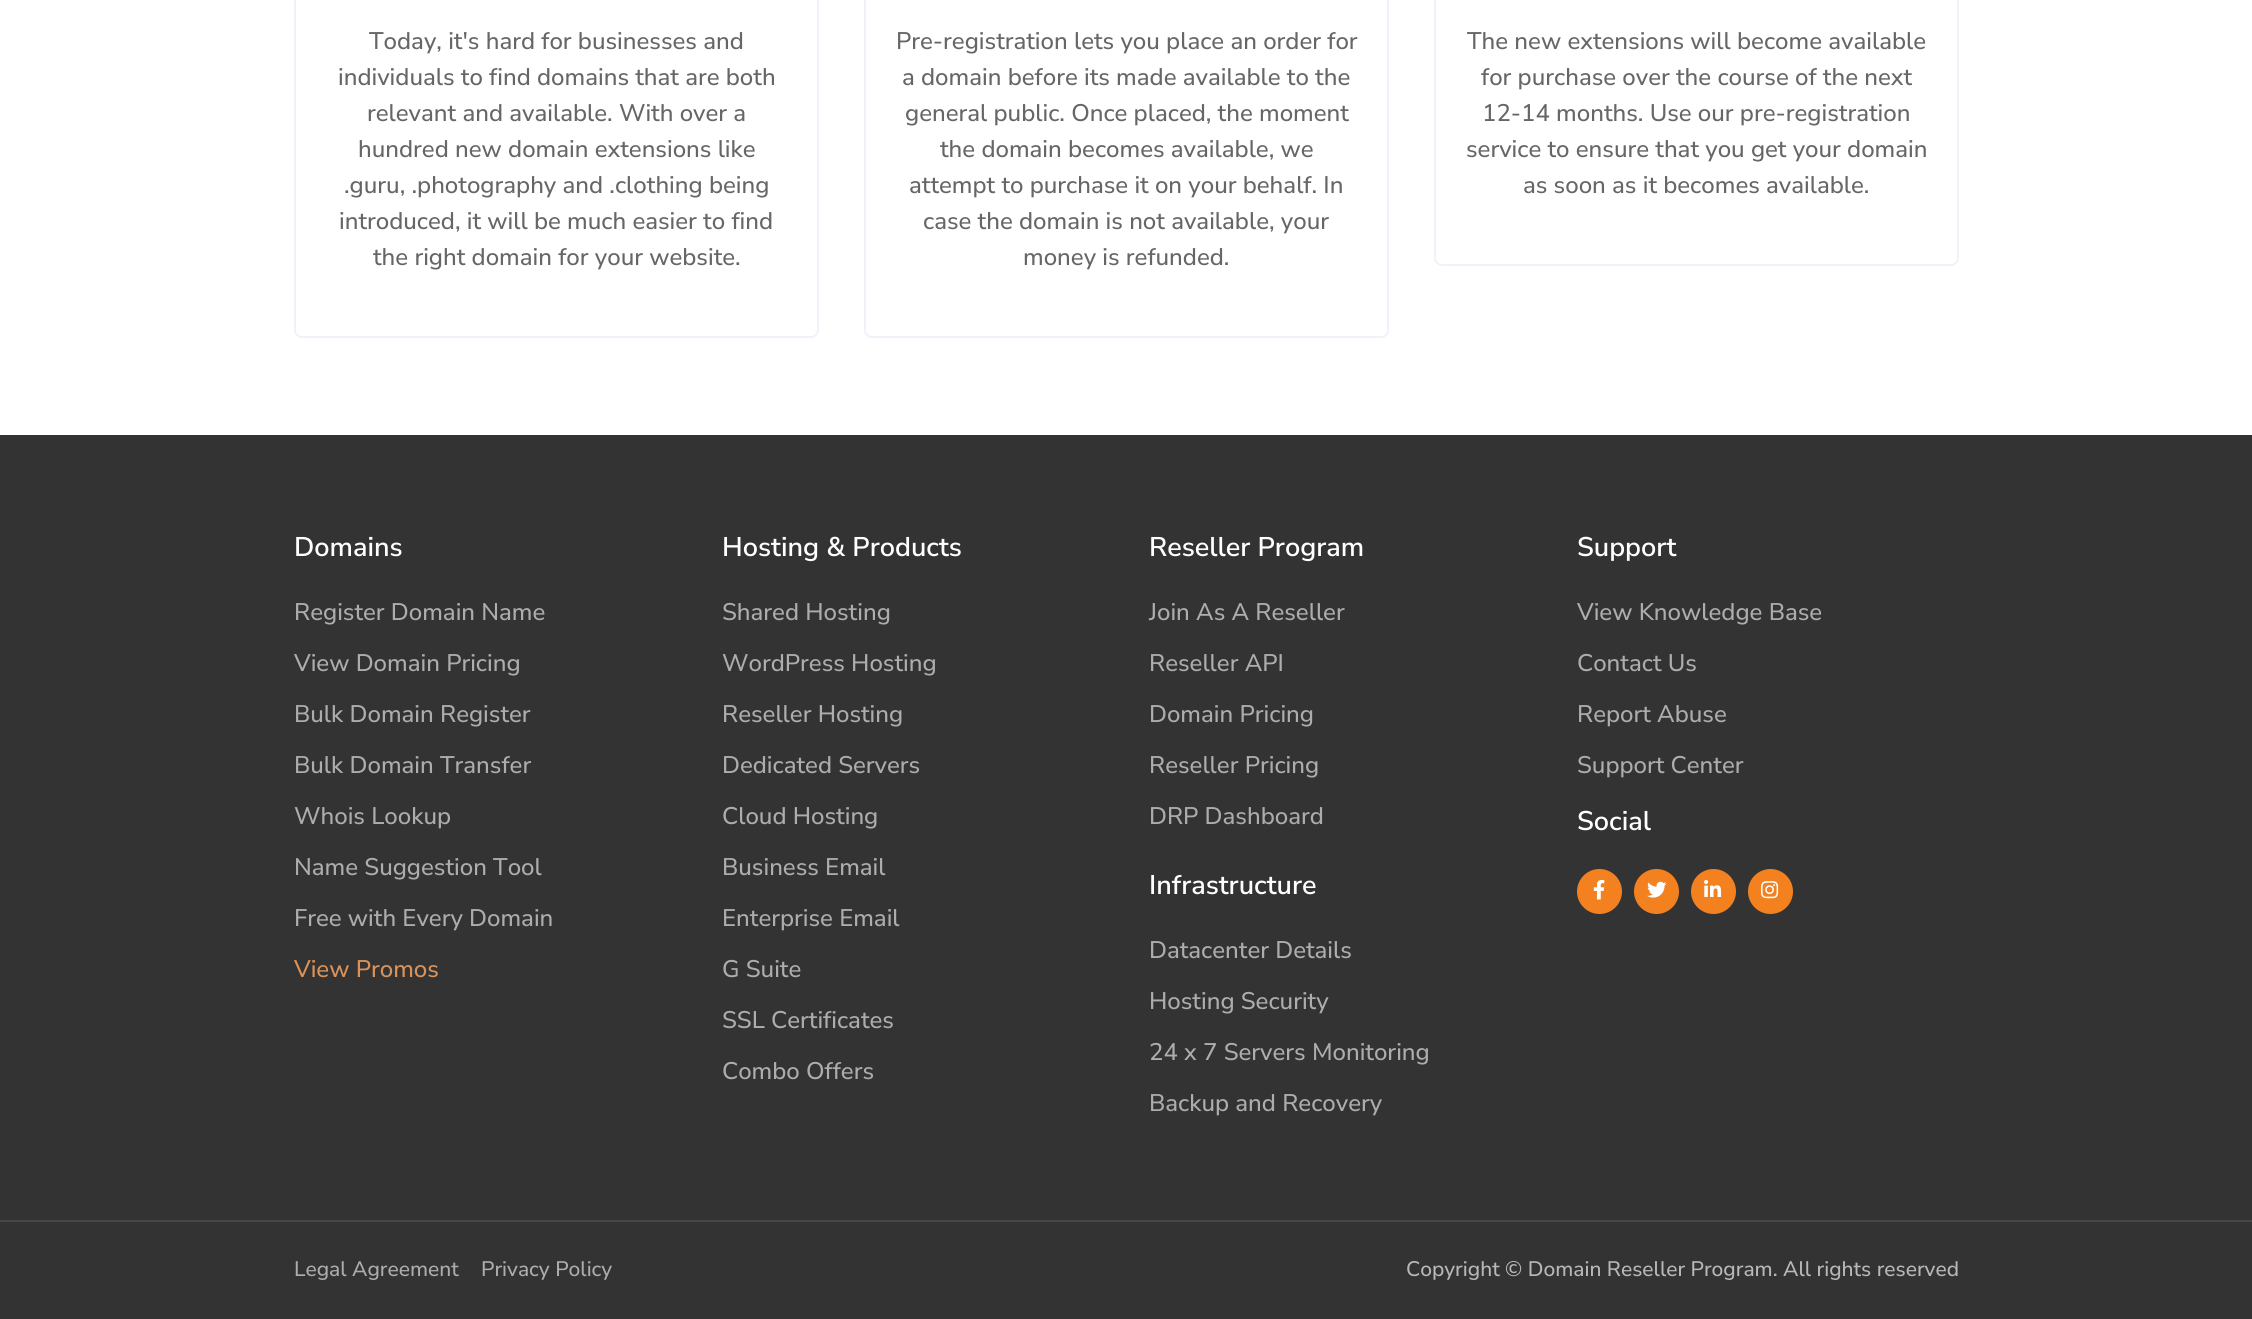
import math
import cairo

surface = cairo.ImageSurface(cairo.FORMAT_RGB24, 2252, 1319)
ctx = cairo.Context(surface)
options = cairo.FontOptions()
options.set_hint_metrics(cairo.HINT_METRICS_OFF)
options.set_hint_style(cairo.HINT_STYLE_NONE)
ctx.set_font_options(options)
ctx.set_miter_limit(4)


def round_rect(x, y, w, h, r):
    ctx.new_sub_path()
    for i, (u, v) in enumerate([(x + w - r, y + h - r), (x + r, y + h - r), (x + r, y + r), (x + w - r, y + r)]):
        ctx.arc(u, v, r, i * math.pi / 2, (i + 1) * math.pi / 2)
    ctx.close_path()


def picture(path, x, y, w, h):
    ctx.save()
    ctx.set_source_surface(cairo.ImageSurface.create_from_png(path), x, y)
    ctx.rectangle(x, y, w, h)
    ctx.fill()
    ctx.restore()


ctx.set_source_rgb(1, 1, 1)
ctx.paint()
round_rect(295, -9, 523, 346, 7)
ctx.set_source_rgb(0.937, 0.949, 0.969)
ctx.stroke()
ctx.select_font_face("Nunito Sans Medium")
ctx.set_font_size(24)
ctx.set_source_rgb(0.4, 0.4, 0.4)
ctx.move_to(369, 49)
ctx.show_text("Today, it's hard for businesses and")
ctx.move_to(338, 85)
ctx.show_text("individuals to find domains that are both")
ctx.move_to(367, 121)
ctx.show_text("relevant and available. With over a")
ctx.move_to(358, 157)
ctx.show_text("hundred new domain extensions like")
ctx.move_to(344, 193)
ctx.show_text(".guru, .photography and .clothing being")
ctx.move_to(339, 229)
ctx.show_text("introduced, it will be much easier to find")
ctx.move_to(373, 265)
ctx.show_text("the right domain for your website.")
round_rect(865, -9, 523, 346, 7)
ctx.set_source_rgb(0.937, 0.949, 0.969)
ctx.stroke()
ctx.set_source_rgb(0.4, 0.4, 0.4)
ctx.move_to(896, 49)
ctx.show_text("Pre-registration lets you place an order for")
ctx.move_to(902, 85)
ctx.show_text("a domain before its made available to the")
ctx.move_to(905, 121)
ctx.show_text("general public. Once placed, the moment")
ctx.move_to(940, 157)
ctx.show_text("the domain becomes available, we")
ctx.move_to(909, 193)
ctx.show_text("attempt to purchase it on your behalf. In")
ctx.move_to(923, 229)
ctx.show_text("case the domain is not available, your")
ctx.move_to(1023, 265)
ctx.show_text("money is refunded.")
round_rect(1435, -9, 523, 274, 7)
ctx.set_source_rgb(0.937, 0.949, 0.969)
ctx.stroke()
ctx.set_source_rgb(0.4, 0.4, 0.4)
ctx.move_to(1467, 49)
ctx.show_text("The new extensions will become available")
ctx.move_to(1481, 85)
ctx.show_text("for purchase over the course of the next")
ctx.move_to(1482, 121)
ctx.show_text("12-14 months. Use our pre-registration")
ctx.move_to(1466, 157)
ctx.show_text("service to ensure that you get your domain")
ctx.move_to(1523, 193)
ctx.show_text("as soon as it becomes available.")
ctx.set_source_rgb(0.2, 0.2, 0.2)
ctx.rectangle(0, 435, 2252, 884)
ctx.fill()
ctx.select_font_face("Nunito Sans SemiBold")
ctx.set_font_size(27)
ctx.set_source_rgb(1, 1, 1)
ctx.move_to(294, 556)
ctx.show_text("Domains")
ctx.select_font_face("Nunito Sans Medium")
ctx.set_font_size(24)
ctx.set_source_rgb(0.678, 0.678, 0.678)
ctx.move_to(294, 620)
ctx.show_text("Register Domain Name")
ctx.move_to(294, 671)
ctx.show_text("View Domain Pricing")
ctx.move_to(294, 722)
ctx.show_text("Bulk Domain Register")
ctx.move_to(294, 773)
ctx.show_text("Bulk Domain Transfer")
ctx.move_to(294, 824)
ctx.show_text("Whois Lookup")
ctx.move_to(294, 875)
ctx.show_text("Name Suggestion Tool")
ctx.move_to(294, 926)
ctx.show_text("Free with Every Domain")
ctx.set_source_rgb(0.855, 0.573, 0.349)
ctx.move_to(294, 977)
ctx.show_text("View Promos")
ctx.select_font_face("Nunito Sans SemiBold")
ctx.set_font_size(27)
ctx.set_source_rgb(1, 1, 1)
ctx.move_to(722, 556)
ctx.show_text("Hosting & Products")
ctx.select_font_face("Nunito Sans Medium")
ctx.set_font_size(24)
ctx.set_source_rgb(0.678, 0.678, 0.678)
ctx.move_to(722, 620)
ctx.show_text("Shared Hosting")
ctx.move_to(722, 671)
ctx.show_text("WordPress Hosting")
ctx.move_to(722, 722)
ctx.show_text("Reseller Hosting")
ctx.move_to(722, 773)
ctx.show_text("Dedicated Servers")
ctx.move_to(722, 824)
ctx.show_text("Cloud Hosting")
ctx.move_to(722, 875)
ctx.show_text("Business Email")
ctx.move_to(722, 926)
ctx.show_text("Enterprise Email")
ctx.move_to(722, 977)
ctx.show_text("G Suite")
ctx.move_to(722, 1028)
ctx.show_text("SSL Certificates")
ctx.move_to(722, 1079)
ctx.show_text("Combo Offers")
ctx.select_font_face("Nunito Sans SemiBold")
ctx.set_font_size(27)
ctx.set_source_rgb(1, 1, 1)
ctx.move_to(1149, 556)
ctx.show_text("Reseller Program")
ctx.select_font_face("Nunito Sans Medium")
ctx.set_font_size(24)
ctx.set_source_rgb(0.678, 0.678, 0.678)
ctx.move_to(1149, 620)
ctx.show_text("Join As A Reseller")
ctx.move_to(1149, 671)
ctx.show_text("Reseller API")
ctx.move_to(1149, 722)
ctx.show_text("Domain Pricing")
ctx.move_to(1149, 773)
ctx.show_text("Reseller Pricing")
ctx.move_to(1149, 824)
ctx.show_text("DRP Dashboard")
ctx.select_font_face("Nunito Sans SemiBold")
ctx.set_font_size(27)
ctx.set_source_rgb(1, 1, 1)
ctx.move_to(1149, 894)
ctx.show_text("Infrastructure")
ctx.select_font_face("Nunito Sans Medium")
ctx.set_font_size(24)
ctx.set_source_rgb(0.678, 0.678, 0.678)
ctx.move_to(1149, 958)
ctx.show_text("Datacenter Details")
ctx.move_to(1149, 1009)
ctx.show_text("Hosting Security")
ctx.move_to(1149, 1060)
ctx.show_text("24 x 7 Servers Monitoring")
ctx.move_to(1149, 1111)
ctx.show_text("Backup and Recovery")
ctx.select_font_face("Nunito Sans SemiBold")
ctx.set_font_size(27)
ctx.set_source_rgb(1, 1, 1)
ctx.move_to(1577, 556)
ctx.show_text("Support")
ctx.select_font_face("Nunito Sans Medium")
ctx.set_font_size(24)
ctx.set_source_rgb(0.678, 0.678, 0.678)
ctx.move_to(1577, 620)
ctx.show_text("View Knowledge Base")
ctx.move_to(1577, 671)
ctx.show_text("Contact Us")
ctx.move_to(1577, 722)
ctx.show_text("Report Abuse")
ctx.move_to(1577, 773)
ctx.show_text("Support Center")
ctx.select_font_face("Nunito Sans SemiBold")
ctx.set_font_size(27)
ctx.set_source_rgb(1, 1, 1)
ctx.move_to(1577, 830)
ctx.show_text("Social")
ctx.set_source_rgb(0.957, 0.506, 0.125)
ctx.new_path()
ctx.arc(1599.5, 891.5, 22.5, 0, 2 * math.pi)
ctx.fill()
picture("img1.png", 1593, 879, 12, 21)
ctx.arc(1656.5, 891.5, 22.5, 0, 2 * math.pi)
ctx.fill()
picture("img2.png", 1647, 881, 20, 17)
ctx.arc(1713.5, 891.5, 22.5, 0, 2 * math.pi)
ctx.fill()
picture("img3.png", 1704, 880, 18, 17)
ctx.arc(1770.5, 891.5, 22.5, 0, 2 * math.pi)
ctx.fill()
picture("img4.png", 1761, 881, 18, 18)
ctx.set_source_rgb(0.278, 0.278, 0.278)
ctx.rectangle(0, 1220, 2252, 2)
ctx.fill()
ctx.select_font_face("Nunito Sans Medium")
ctx.set_font_size(21)
ctx.set_source_rgb(0.678, 0.678, 0.678)
ctx.move_to(294, 1276)
ctx.show_text("Legal Agreement")
ctx.move_to(481, 1276)
ctx.show_text("Privacy Policy")
ctx.set_source_rgb(0.722, 0.722, 0.722)
ctx.move_to(1406, 1276)
ctx.show_text("Copyright © Domain Reseller Program. All rights reserved")
surface.write_to_png("page.png")
